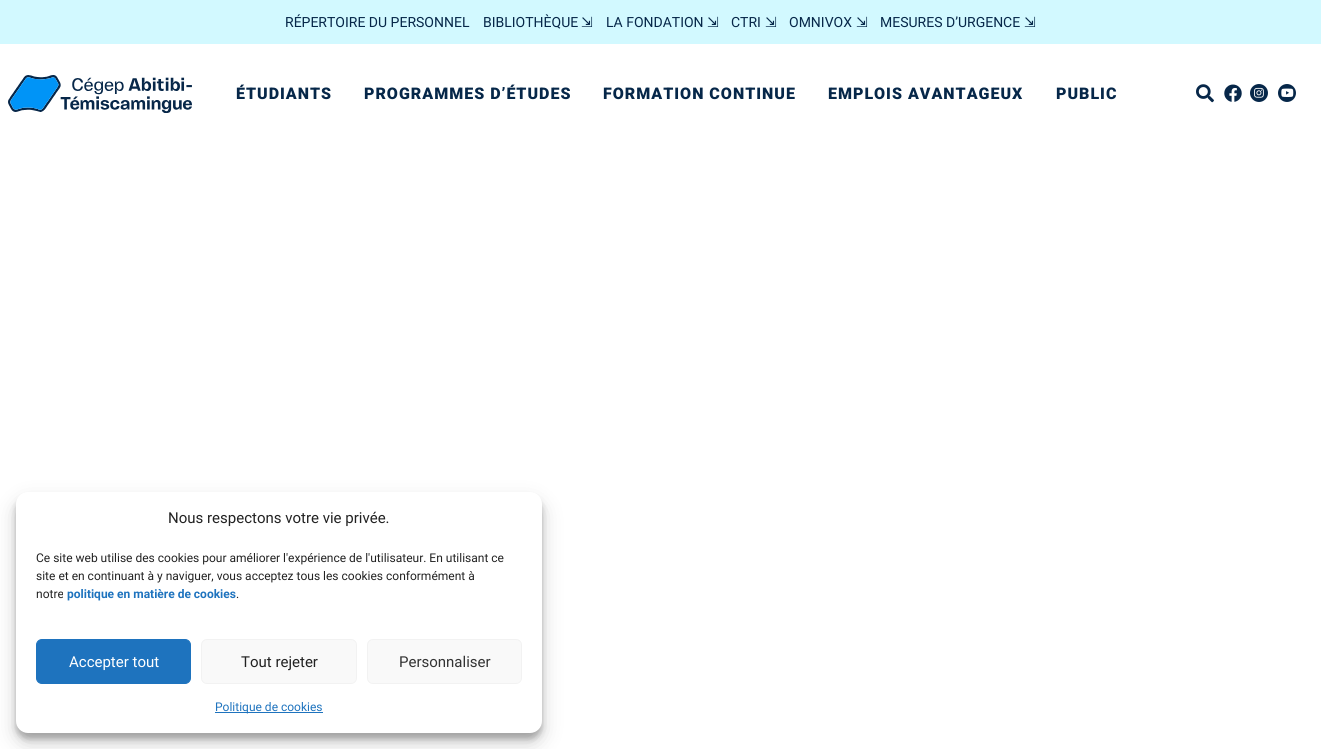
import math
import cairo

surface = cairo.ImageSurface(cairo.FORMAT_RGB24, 1321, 749)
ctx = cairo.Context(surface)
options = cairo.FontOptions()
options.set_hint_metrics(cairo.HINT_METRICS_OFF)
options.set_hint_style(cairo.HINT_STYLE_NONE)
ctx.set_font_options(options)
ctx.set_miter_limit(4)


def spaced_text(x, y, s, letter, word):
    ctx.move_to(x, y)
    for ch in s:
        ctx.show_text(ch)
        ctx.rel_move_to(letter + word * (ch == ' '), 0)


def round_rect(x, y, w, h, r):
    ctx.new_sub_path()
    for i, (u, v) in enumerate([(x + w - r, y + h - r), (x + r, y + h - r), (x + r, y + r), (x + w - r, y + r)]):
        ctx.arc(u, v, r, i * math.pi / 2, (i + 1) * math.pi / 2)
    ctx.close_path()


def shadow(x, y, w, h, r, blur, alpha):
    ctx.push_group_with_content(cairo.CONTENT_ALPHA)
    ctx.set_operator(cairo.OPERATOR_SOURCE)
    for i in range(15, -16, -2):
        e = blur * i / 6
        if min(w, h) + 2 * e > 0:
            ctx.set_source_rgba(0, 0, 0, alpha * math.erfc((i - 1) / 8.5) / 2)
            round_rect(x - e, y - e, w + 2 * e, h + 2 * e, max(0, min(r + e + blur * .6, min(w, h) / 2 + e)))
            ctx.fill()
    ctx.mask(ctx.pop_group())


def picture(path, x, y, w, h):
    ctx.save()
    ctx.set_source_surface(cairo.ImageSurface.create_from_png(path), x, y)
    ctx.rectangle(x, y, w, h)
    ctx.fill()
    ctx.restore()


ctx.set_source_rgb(1, 1, 1)
ctx.paint()
ctx.set_source_rgb(0.824, 0.973, 1)
ctx.rectangle(0, 0, 1321, 44)
ctx.fill()
ctx.select_font_face("Roboto")
ctx.set_font_size(14)
ctx.set_source_rgb(0.027, 0.153, 0.286)
ctx.move_to(285, 27)
ctx.show_text("RÉPERTOIRE DU PERSONNEL")
ctx.move_to(483, 27)
ctx.show_text("BIBLIOTHÈQUE")
ctx.select_font_face("DejaVu Sans")
ctx.move_to(581, 27)
ctx.show_text("⇲")
ctx.select_font_face("Roboto")
ctx.move_to(606, 27)
ctx.show_text("LA FONDATION")
ctx.select_font_face("DejaVu Sans")
ctx.move_to(707, 27)
ctx.show_text("⇲")
ctx.select_font_face("Roboto")
ctx.move_to(731, 27)
ctx.show_text("CTRI")
ctx.select_font_face("DejaVu Sans")
ctx.move_to(765, 27)
ctx.show_text("⇲")
ctx.select_font_face("Roboto")
ctx.move_to(789, 27)
ctx.show_text("OMNIVOX")
ctx.select_font_face("DejaVu Sans")
ctx.move_to(856, 27)
ctx.show_text("⇲")
ctx.select_font_face("Roboto")
ctx.move_to(880, 27)
ctx.show_text("MESURES D’URGENCE")
ctx.select_font_face("DejaVu Sans")
ctx.move_to(1024, 27)
ctx.show_text("⇲")
picture("img1.png", 8, 75, 184, 38)
ctx.select_font_face("Roboto Black")
ctx.set_font_size(16)
spaced_text(236, 99, "ÉTUDIANTS", 1, 0)
spaced_text(364, 99, "PROGRAMMES D’ÉTUDES", 1, 0)
spaced_text(603, 99, "FORMATION CONTINUE", 1, 0)
spaced_text(828, 99, "EMPLOIS AVANTAGEUX", 1, 0)
spaced_text(1056, 99, "PUBLIC", 1, 0)
picture("img2.png", 1196, 84, 18, 19)
picture("img3.png", 1224, 84, 18, 18)
ctx.arc(1259, 93, 9, 0, 2 * math.pi)
ctx.fill()
picture("img4.png", 1254, 87, 10, 11)
ctx.arc(1287, 93, 9, 0, 2 * math.pi)
ctx.fill()
picture("img5.png", 1281, 88, 13, 9)
ctx.set_source_rgb(0, 0, 0)
shadow(16, 498, 526, 241, 12, 3, 0.23)
shadow(16, 502, 526, 241, 12, 10, 0.19)
ctx.set_source_rgb(1, 1, 1)
round_rect(16, 492, 526, 241, 12)
ctx.fill()
ctx.select_font_face("Roboto")
ctx.set_font_size(15)
ctx.set_source_rgb(0.133, 0.133, 0.133)
ctx.move_to(168, 523)
ctx.show_text("Nous respectons votre vie privée.")
ctx.set_font_size(12)
ctx.move_to(36, 562)
ctx.show_text("Ce site web utilise des cookies pour améliorer l'expérience de l'utilisateur. En utilisant ce")
ctx.move_to(36, 580)
ctx.show_text("site et en continuant à y naviguer, vous acceptez tous les cookies conformément à")
ctx.move_to(36, 598)
ctx.show_text("notre")
ctx.select_font_face("Roboto", cairo.FONT_SLANT_NORMAL, cairo.FONT_WEIGHT_BOLD)
ctx.set_source_rgb(0.118, 0.451, 0.745)
ctx.move_to(67, 598)
ctx.show_text("politique en matière de cookies")
ctx.select_font_face("Roboto")
ctx.set_source_rgb(0.133, 0.133, 0.133)
ctx.move_to(236, 598)
ctx.show_text(".")
ctx.set_source_rgb(0.118, 0.451, 0.745)
round_rect(36.5, 639.5, 154, 44, 5.5)
ctx.fill_preserve()
ctx.set_line_width(1)
ctx.stroke()
ctx.set_font_size(15)
ctx.set_source_rgb(1, 1, 1)
ctx.move_to(69, 667)
ctx.show_text("Accepter tout")
ctx.set_source_rgb(0.976, 0.976, 0.976)
round_rect(201.5, 639.5, 155, 44, 5.5)
ctx.fill_preserve()
ctx.set_source_rgb(0.949, 0.949, 0.949)
ctx.stroke()
ctx.set_source_rgb(0.133, 0.133, 0.133)
ctx.move_to(241, 667)
ctx.show_text("Tout rejeter")
ctx.set_source_rgb(0.976, 0.976, 0.976)
round_rect(367.5, 639.5, 154, 44, 5.5)
ctx.fill_preserve()
ctx.set_source_rgb(0.949, 0.949, 0.949)
ctx.stroke()
ctx.set_source_rgb(0.2, 0.2, 0.2)
ctx.move_to(399, 667)
ctx.show_text("Personnaliser")
ctx.set_source_rgb(0.118, 0.451, 0.745)
ctx.rectangle(215, 712, 108, 1)
ctx.fill()
ctx.set_font_size(12)
ctx.move_to(215, 711)
ctx.show_text("Politique de cookies")
surface.write_to_png("page.png")
